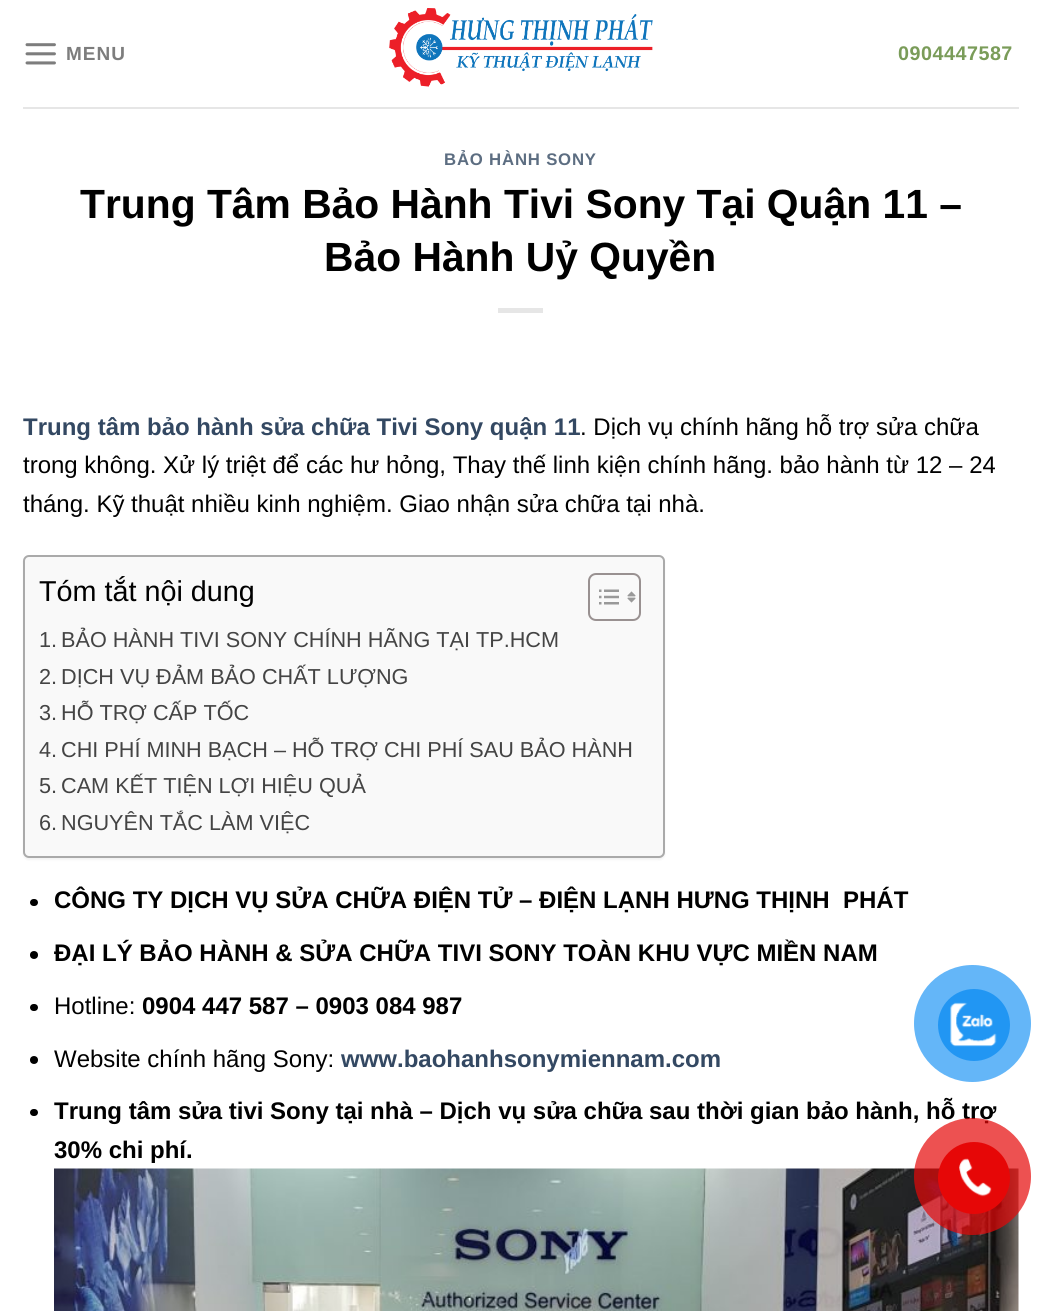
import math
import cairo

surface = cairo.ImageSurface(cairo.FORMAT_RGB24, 1040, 1311)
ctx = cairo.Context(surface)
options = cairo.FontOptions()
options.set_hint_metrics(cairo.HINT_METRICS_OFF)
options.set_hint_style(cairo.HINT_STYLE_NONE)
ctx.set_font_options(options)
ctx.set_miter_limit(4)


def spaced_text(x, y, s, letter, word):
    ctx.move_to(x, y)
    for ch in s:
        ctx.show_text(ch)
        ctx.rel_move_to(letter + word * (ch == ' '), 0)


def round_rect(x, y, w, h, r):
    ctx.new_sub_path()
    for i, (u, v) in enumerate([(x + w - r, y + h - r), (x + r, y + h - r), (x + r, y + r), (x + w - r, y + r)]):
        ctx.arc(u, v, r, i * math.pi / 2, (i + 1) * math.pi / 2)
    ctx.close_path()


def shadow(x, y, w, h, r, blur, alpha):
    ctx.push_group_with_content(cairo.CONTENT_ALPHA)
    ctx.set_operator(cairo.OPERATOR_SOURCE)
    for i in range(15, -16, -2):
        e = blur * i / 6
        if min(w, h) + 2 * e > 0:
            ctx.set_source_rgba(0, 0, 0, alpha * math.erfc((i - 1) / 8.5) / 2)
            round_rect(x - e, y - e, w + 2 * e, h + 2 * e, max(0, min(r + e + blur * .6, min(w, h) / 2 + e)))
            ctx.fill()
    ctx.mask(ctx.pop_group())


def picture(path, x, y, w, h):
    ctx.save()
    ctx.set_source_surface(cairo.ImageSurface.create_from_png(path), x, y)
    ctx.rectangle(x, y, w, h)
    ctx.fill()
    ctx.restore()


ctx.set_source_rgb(1, 1, 1)
ctx.paint()
picture("img1.png", 25, 43, 31, 22)
ctx.select_font_face("Liberation Sans", cairo.FONT_SLANT_NORMAL, cairo.FONT_WEIGHT_BOLD)
ctx.set_font_size(19)
ctx.set_source_rgb(0.49, 0.49, 0.49)
spaced_text(66, 60, "MENU", 1, 0)
picture("img2.png", 389, 8, 264, 79)
ctx.set_font_size(19.75)
ctx.set_source_rgb(0.478, 0.612, 0.349)
spaced_text(898, 60, "0904447587", 0.5, 0)
ctx.set_source_rgb(0.902, 0.902, 0.902)
ctx.rectangle(23, 107, 996, 2)
ctx.fill()
ctx.set_font_size(16.75)
ctx.set_source_rgb(0.361, 0.427, 0.506)
spaced_text(444, 165, "BẢO HÀNH SONY", 0.8, 0)
ctx.set_font_size(40.8)
ctx.set_source_rgb(0, 0, 0)
ctx.move_to(80, 218)
ctx.show_text("Trung Tâm Bảo Hành Tivi Sony Tại Quận 11 –")
ctx.move_to(324, 271)
ctx.show_text("Bảo Hành Uỷ Quyền")
ctx.set_source_rgb(0.902, 0.902, 0.902)
ctx.rectangle(498, 308, 45, 5)
ctx.fill()
ctx.set_font_size(24)
ctx.set_source_rgb(0.2, 0.282, 0.384)
ctx.move_to(23, 435)
ctx.show_text("Trung tâm bảo hành sửa chữa Tivi Sony quận 11")
ctx.select_font_face("Liberation Sans")
ctx.set_source_rgb(0, 0, 0)
ctx.move_to(580, 435)
ctx.show_text(". Dịch vụ chính hãng hỗ trợ sửa chữa")
ctx.move_to(23, 473)
ctx.show_text("trong không. Xử lý triệt để các hư hỏng, Thay thế linh kiện chính hãng. bảo hành từ 12 – 24")
ctx.move_to(23, 512)
ctx.show_text("tháng. Kỹ thuật nhiều kinh nghiệm. Giao nhận sửa chữa tại nhà.")
ctx.set_source_rgb(0, 0, 0)
shadow(23, 557, 642, 303, 6, 1, 0.05)
ctx.set_source_rgb(0.976, 0.976, 0.976)
round_rect(24, 556, 640, 301, 5)
ctx.fill_preserve()
ctx.set_source_rgb(0.667, 0.667, 0.667)
ctx.stroke()
ctx.set_font_size(28.75)
ctx.set_source_rgb(0, 0, 0)
ctx.move_to(39, 601)
ctx.show_text("Tóm tắt nội dung")
round_rect(589, 574, 51, 46, 7)
ctx.set_source_rgb(0.6, 0.569, 0.569)
ctx.stroke()
picture("img3.png", 599, 589, 20, 16)
picture("img4.png", 627, 591, 9, 12)
ctx.set_font_size(21.65)
ctx.set_source_rgb(0.267, 0.267, 0.267)
ctx.move_to(39, 647)
ctx.show_text("1.")
ctx.move_to(61, 647)
ctx.show_text("BẢO HÀNH TIVI SONY CHÍNH HÃNG TẠI TP.HCM")
ctx.move_to(39, 684)
ctx.show_text("2.")
ctx.move_to(61, 684)
ctx.show_text("DỊCH VỤ ĐẢM BẢO CHẤT LƯỢNG")
ctx.move_to(39, 720)
ctx.show_text("3.")
ctx.move_to(61, 720)
ctx.show_text("HỖ TRỢ CẤP TỐC")
ctx.move_to(39, 757)
ctx.show_text("4.")
ctx.move_to(61, 757)
ctx.show_text("CHI PHÍ MINH BẠCH – HỖ TRỢ CHI PHÍ SAU BẢO HÀNH")
ctx.move_to(39, 793)
ctx.show_text("5.")
ctx.move_to(61, 793)
ctx.show_text("CAM KẾT TIỆN LỢI HIỆU QUẢ")
ctx.move_to(39, 830)
ctx.show_text("6.")
ctx.move_to(61, 830)
ctx.show_text("NGUYÊN TẮC LÀM VIỆC")
ctx.set_source_rgb(0, 0, 0)
round_rect(30, 899, 8, 7, 3.5)
ctx.fill()
ctx.select_font_face("Liberation Sans", cairo.FONT_SLANT_NORMAL, cairo.FONT_WEIGHT_BOLD)
ctx.set_font_size(24)
ctx.move_to(54, 908)
ctx.show_text("CÔNG TY DỊCH VỤ SỬA CHỮA ĐIỆN TỬ – ĐIỆN LẠNH HƯNG THỊNH  PHÁT")
ctx.new_path()
ctx.arc(34, 955, 4, 0, 2 * math.pi)
ctx.fill()
ctx.move_to(54, 961)
ctx.show_text("ĐẠI LÝ BẢO HÀNH & SỬA CHỮA TIVI SONY TOÀN KHU VỰC MIỀN NAM")
round_rect(30, 1004, 8, 7, 3.5)
ctx.fill()
ctx.select_font_face("Liberation Sans")
ctx.move_to(54, 1014)
ctx.show_text("Hotline:")
ctx.select_font_face("Liberation Sans", cairo.FONT_SLANT_NORMAL, cairo.FONT_WEIGHT_BOLD)
ctx.move_to(142, 1014)
ctx.show_text("0904 447 587 – 0903 084 987")
ctx.new_path()
ctx.arc(34, 1060, 4, 0, 2 * math.pi)
ctx.fill()
ctx.select_font_face("Liberation Sans")
ctx.move_to(54, 1067)
ctx.show_text("Website chính hãng Sony:")
ctx.select_font_face("Liberation Sans", cairo.FONT_SLANT_NORMAL, cairo.FONT_WEIGHT_BOLD)
ctx.set_source_rgb(0.2, 0.282, 0.384)
ctx.move_to(341, 1067)
ctx.show_text("www.baohanhsonymiennam.com")
ctx.set_source_rgb(0, 0, 0)
round_rect(30, 1109, 8, 7, 3.5)
ctx.fill()
ctx.move_to(54, 1119)
ctx.show_text("Trung tâm sửa tivi Sony tại nhà – Dịch vụ sửa chữa sau thời gian bảo hành, hỗ trợ")
ctx.move_to(54, 1158)
ctx.show_text("30% chi phí.")
picture("img5.png", 54, 1168, 965, 143)
ctx.set_source_rgb(0.392, 0.714, 0.969)
ctx.arc(972.5, 1023.5, 58.5, 0, 2 * math.pi)
ctx.fill()
ctx.set_source_rgb(0.129, 0.588, 0.953)
ctx.arc(974, 1025, 36, 0, 2 * math.pi)
ctx.fill()
picture("img6.png", 950, 1002, 47, 45)
ctx.set_source_rgba(0.902, 0.031, 0.031, 0.7)
ctx.arc(972.5, 1176.5, 58.5, 0, 2 * math.pi)
ctx.fill()
ctx.set_source_rgb(0.902, 0.031, 0.031)
ctx.arc(974, 1178, 36, 0, 2 * math.pi)
ctx.fill()
picture("img7.png", 959, 1158, 33, 39)
surface.write_to_png("page.png")
